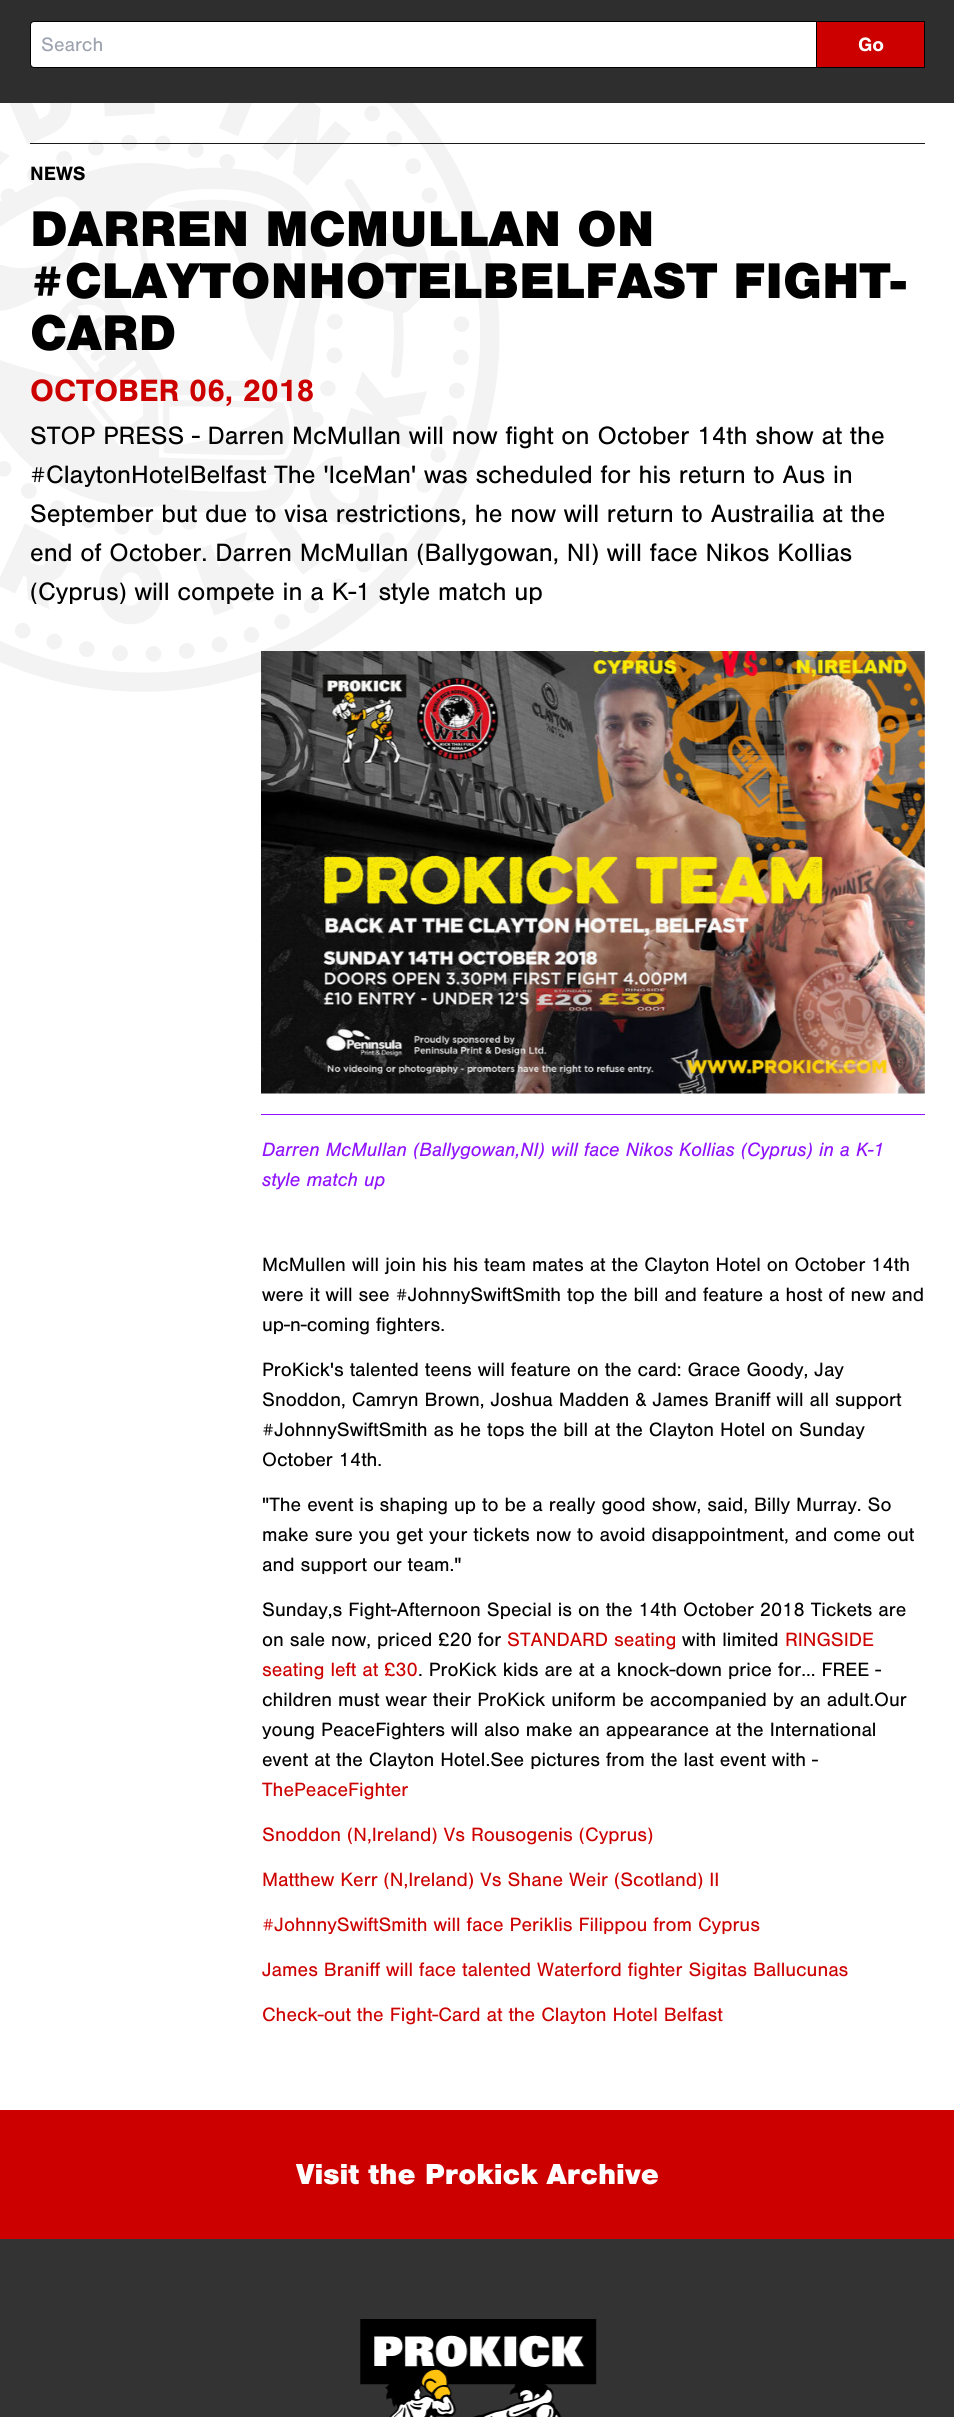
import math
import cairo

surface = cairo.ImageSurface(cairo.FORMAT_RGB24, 954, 2417)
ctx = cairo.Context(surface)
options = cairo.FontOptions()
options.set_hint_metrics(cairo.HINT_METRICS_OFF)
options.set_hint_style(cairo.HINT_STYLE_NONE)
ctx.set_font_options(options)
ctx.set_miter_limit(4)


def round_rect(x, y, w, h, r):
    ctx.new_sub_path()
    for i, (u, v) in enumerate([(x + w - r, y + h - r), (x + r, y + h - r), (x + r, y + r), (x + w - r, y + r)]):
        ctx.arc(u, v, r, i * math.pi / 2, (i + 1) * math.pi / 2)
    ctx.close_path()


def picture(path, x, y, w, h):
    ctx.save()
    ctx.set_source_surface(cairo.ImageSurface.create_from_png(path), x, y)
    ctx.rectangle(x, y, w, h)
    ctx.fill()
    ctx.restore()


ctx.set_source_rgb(1, 1, 1)
ctx.paint()
ctx.set_source_rgb(0.18, 0.18, 0.18)
ctx.rectangle(0, 0, 954, 103)
ctx.fill()
ctx.set_source_rgb(1, 1, 1)
round_rect(30.5, 21.5, 894, 46, 3.5)
ctx.fill_preserve()
ctx.set_source_rgb(0, 0, 0)
ctx.set_line_width(1)
ctx.stroke()
ctx.select_font_face("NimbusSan")
ctx.set_font_size(20)
ctx.set_source_rgb(0.612, 0.639, 0.686)
ctx.move_to(41, 51)
ctx.show_text("Search")
ctx.set_source_rgb(0.804, 0, 0)
ctx.rectangle(816.5, 21.5, 108, 46)
ctx.fill_preserve()
ctx.set_source_rgb(0, 0, 0)
ctx.stroke()
ctx.select_font_face("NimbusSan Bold", cairo.FONT_SLANT_NORMAL, cairo.FONT_WEIGHT_BOLD)
ctx.set_source_rgb(1, 1, 1)
ctx.move_to(858, 51)
ctx.show_text("Go")
picture("img1.png", 0, 103, 500, 589)
ctx.set_source_rgb(0.102, 0.102, 0.102)
ctx.rectangle(30, 143, 895, 1)
ctx.fill()
ctx.set_source_rgb(0, 0, 0)
ctx.move_to(30, 180)
ctx.show_text("NEWS")
ctx.select_font_face("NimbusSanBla")
ctx.set_font_size(52)
ctx.move_to(30, 246)
ctx.show_text("DARREN MCMULLAN ON")
ctx.move_to(30, 298)
ctx.show_text("#CLAYTONHOTELBELFAST FIGHT-")
ctx.move_to(30, 350)
ctx.show_text("CARD")
ctx.select_font_face("NimbusSan Bold", cairo.FONT_SLANT_NORMAL, cairo.FONT_WEIGHT_BOLD)
ctx.set_font_size(32)
ctx.set_source_rgb(0.804, 0, 0)
ctx.move_to(30, 401)
ctx.show_text("OCTOBER 06, 2018")
ctx.select_font_face("NimbusSan")
ctx.set_font_size(26)
ctx.set_source_rgb(0, 0, 0)
ctx.move_to(30, 444)
ctx.show_text("STOP PRESS - Darren McMullan will now fight on October 14th show at the")
ctx.move_to(30, 483)
ctx.show_text("#ClaytonHotelBelfast The 'IceMan' was scheduled for his return to Aus in")
ctx.move_to(30, 522)
ctx.show_text("September but due to visa restrictions, he now will return to Austrailia at the")
ctx.move_to(30, 561)
ctx.show_text("end of October. Darren McMullan (Ballygowan, NI) will face Nikos Kollias")
ctx.move_to(30, 600)
ctx.show_text("(Cyprus) will compete in a K-1 style match up")
picture("img2.png", 261, 651, 664, 443)
ctx.set_source_rgb(0.565, 0.075, 0.996)
ctx.rectangle(261, 1114, 664, 1)
ctx.fill()
ctx.select_font_face("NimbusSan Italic", cairo.FONT_SLANT_ITALIC)
ctx.set_font_size(20)
ctx.move_to(262, 1156)
ctx.show_text("Darren McMullan (Ballygowan,NI) will face Nikos Kollias (Cyprus) in a K-1")
ctx.move_to(262, 1186)
ctx.show_text("style match up")
ctx.select_font_face("NimbusSan")
ctx.set_source_rgb(0, 0, 0)
ctx.move_to(262, 1271)
ctx.show_text("McMullen will join his his team mates at the Clayton Hotel on October 14th")
ctx.move_to(262, 1301)
ctx.show_text("were it will see #JohnnySwiftSmith top the bill and feature a host of new and")
ctx.move_to(262, 1331)
ctx.show_text("up-n-coming fighters.")
ctx.move_to(262, 1376)
ctx.show_text("ProKick's talented teens will feature on the card: Grace Goody, Jay")
ctx.move_to(262, 1406)
ctx.show_text("Snoddon, Camryn Brown, Joshua Madden & James Braniff will all support")
ctx.move_to(262, 1436)
ctx.show_text("#JohnnySwiftSmith as he tops the bill at the Clayton Hotel on Sunday")
ctx.move_to(262, 1466)
ctx.show_text("October 14th.")
ctx.move_to(262, 1511)
ctx.show_text("\"The event is shaping up to be a really good show, said, Billy Murray. So")
ctx.move_to(262, 1541)
ctx.show_text("make sure you get your tickets now to avoid disappointment, and come out")
ctx.move_to(262, 1571)
ctx.show_text("and support our team.\"")
ctx.move_to(262, 1616)
ctx.show_text("Sunday,s Fight-Afternoon Special is on the 14th October 2018 Tickets are")
ctx.move_to(262, 1646)
ctx.show_text("on sale now, priced £20 for")
ctx.set_source_rgb(0.804, 0, 0)
ctx.move_to(507, 1646)
ctx.show_text("STANDARD seating")
ctx.set_source_rgb(0, 0, 0)
ctx.move_to(682, 1646)
ctx.show_text("with limited")
ctx.set_source_rgb(0.804, 0, 0)
ctx.move_to(785, 1646)
ctx.show_text("RINGSIDE")
ctx.move_to(262, 1676)
ctx.show_text("seating left at £30")
ctx.set_source_rgb(0, 0, 0)
ctx.move_to(418, 1676)
ctx.show_text(". ProKick kids are at a knock-down price for... FREE -")
ctx.move_to(262, 1706)
ctx.show_text("children must wear their ProKick uniform be accompanied by an adult.Our")
ctx.move_to(262, 1736)
ctx.show_text("young PeaceFighters will also make an appearance at the International")
ctx.move_to(262, 1766)
ctx.show_text("event at the Clayton Hotel.See pictures from the last event with -")
ctx.set_source_rgb(0.804, 0, 0)
ctx.move_to(262, 1796)
ctx.show_text("ThePeaceFighter")
ctx.move_to(262, 1841)
ctx.show_text("Snoddon (N,Ireland) Vs Rousogenis (Cyprus)")
ctx.move_to(262, 1886)
ctx.show_text("Matthew Kerr (N,Ireland) Vs Shane Weir (Scotland) II")
ctx.move_to(262, 1931)
ctx.show_text("#JohnnySwiftSmith will face Periklis Filippou from Cyprus")
ctx.move_to(262, 1976)
ctx.show_text("James Braniff will face talented Waterford fighter Sigitas Ballucunas")
ctx.move_to(262, 2021)
ctx.show_text("Check-out the Fight-Card at the Clayton Hotel Belfast")
ctx.rectangle(0, 2110, 954, 129)
ctx.fill()
ctx.select_font_face("NimbusSanBla")
ctx.set_font_size(30)
ctx.set_source_rgb(1, 1, 1)
ctx.move_to(296, 2184)
ctx.show_text("Visit the Prokick Archive")
ctx.set_source_rgb(0.2, 0.2, 0.2)
ctx.rectangle(0, 2239, 954, 178)
ctx.fill()
picture("img3.png", 360, 2319, 237, 98)
surface.write_to_png("page.png")
